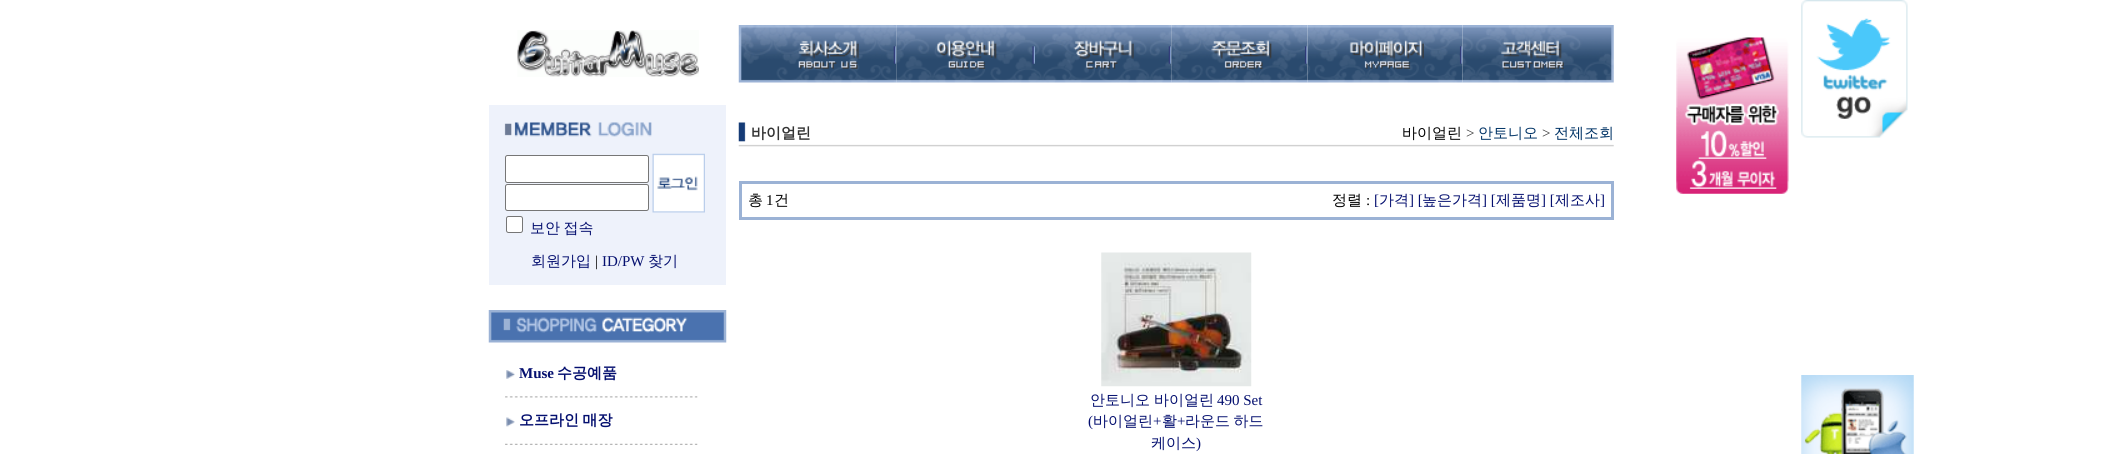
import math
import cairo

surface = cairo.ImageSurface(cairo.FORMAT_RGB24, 2102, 454)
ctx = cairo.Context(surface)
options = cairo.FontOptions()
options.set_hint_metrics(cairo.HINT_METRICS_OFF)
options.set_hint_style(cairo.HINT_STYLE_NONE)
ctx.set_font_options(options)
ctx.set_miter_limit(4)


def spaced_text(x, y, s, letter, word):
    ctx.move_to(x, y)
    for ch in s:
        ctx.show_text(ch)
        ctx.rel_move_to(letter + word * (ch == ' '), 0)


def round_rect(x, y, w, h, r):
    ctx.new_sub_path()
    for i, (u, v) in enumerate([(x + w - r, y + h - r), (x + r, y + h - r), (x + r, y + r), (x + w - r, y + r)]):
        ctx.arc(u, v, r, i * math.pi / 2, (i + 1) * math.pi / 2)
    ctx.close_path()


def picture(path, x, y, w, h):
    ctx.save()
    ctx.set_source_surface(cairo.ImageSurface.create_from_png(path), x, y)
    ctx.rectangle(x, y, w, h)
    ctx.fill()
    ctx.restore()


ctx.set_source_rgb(1, 1, 1)
ctx.paint()
picture("img1.png", 517, 30, 182, 47)
picture("img2.png", 738, 25, 159, 58)
picture("img3.png", 896, 25, 139, 58)
picture("img4.png", 1035, 25, 137, 58)
picture("img5.png", 1171, 25, 137, 58)
picture("img6.png", 1307, 25, 156, 58)
picture("img7.png", 1462, 25, 152, 58)
picture("img8.png", 1676, 37, 113, 157)
picture("img9.png", 1801, 0, 107, 138)
ctx.set_source_rgb(0.933, 0.949, 0.984)
ctx.rectangle(489, 105, 237, 180)
ctx.fill()
picture("img10.png", 504, 122, 148, 15)
ctx.set_source_rgb(1, 1, 1)
round_rect(505.5, 155.5, 143, 27, 2)
ctx.fill_preserve()
ctx.set_source_rgb(0.463, 0.463, 0.463)
ctx.set_line_width(1)
ctx.stroke()
picture("img11.png", 652, 153, 53, 60)
ctx.set_source_rgb(1, 1, 1)
round_rect(505.5, 184.5, 143, 26, 2)
ctx.fill_preserve()
ctx.set_source_rgb(0.463, 0.463, 0.463)
ctx.stroke()
ctx.set_source_rgb(1, 1, 1)
round_rect(506.5, 216.5, 16, 16, 2)
ctx.fill_preserve()
ctx.set_source_rgb(0.463, 0.463, 0.463)
ctx.stroke()
ctx.select_font_face("WenQuanYi Zen Hei Medium")
ctx.set_font_size(15)
ctx.set_source_rgb(0.016, 0.059, 0.435)
spaced_text(530, 233, "보안 접속", 0, -1)
ctx.move_to(531, 266)
ctx.show_text("회원가입")
ctx.select_font_face("Liberation Serif")
ctx.set_source_rgb(0, 0, 0)
ctx.move_to(595, 266)
ctx.show_text("|")
ctx.set_source_rgb(0.016, 0.059, 0.435)
ctx.move_to(602, 266)
ctx.show_text("ID/PW")
ctx.select_font_face("WenQuanYi Zen Hei Medium")
ctx.move_to(648, 266)
ctx.show_text("찾기")
picture("img12.png", 488, 310, 239, 33)
picture("img13.png", 506, 370, 9, 9)
ctx.select_font_face("Liberation Serif", cairo.FONT_SLANT_NORMAL, cairo.FONT_WEIGHT_BOLD)
ctx.move_to(519, 378)
ctx.show_text("Muse")
ctx.select_font_face("WenQuanYi Zen Hei", cairo.FONT_SLANT_NORMAL, cairo.FONT_WEIGHT_BOLD)
ctx.move_to(557, 378)
ctx.show_text("수공예품")
picture("img14.png", 505, 396, 193, 2)
picture("img15.png", 506, 417, 9, 10)
spaced_text(519, 425, "오프라인 매장", 0, -1)
picture("img16.png", 505, 443, 193, 2)
picture("img17.png", 738, 122, 876, 25)
ctx.set_source_rgb(0.2, 0.2, 0.2)
ctx.move_to(751, 138)
ctx.show_text("바이얼린")
ctx.select_font_face("WenQuanYi Zen Hei Medium")
ctx.set_source_rgb(0, 0, 0)
ctx.move_to(1402, 138)
ctx.show_text("바이얼린")
ctx.select_font_face("Liberation Serif")
ctx.set_source_rgb(0.2, 0.2, 0.2)
ctx.move_to(1466, 138)
ctx.show_text(">")
ctx.select_font_face("WenQuanYi Zen Hei Medium")
ctx.set_source_rgb(0, 0.2, 0.4)
ctx.move_to(1478, 138)
ctx.show_text("안토니오")
ctx.select_font_face("Liberation Serif")
ctx.set_source_rgb(0.2, 0.2, 0.2)
ctx.move_to(1542, 138)
ctx.show_text(">")
ctx.select_font_face("WenQuanYi Zen Hei Medium")
ctx.set_source_rgb(0, 0.2, 0.4)
ctx.move_to(1554, 138)
ctx.show_text("전체조회")
ctx.rectangle(740.5, 182.5, 872, 36)
ctx.set_source_rgb(0.608, 0.698, 0.835)
ctx.set_line_width(3)
ctx.stroke()
ctx.set_source_rgb(0, 0, 0)
ctx.move_to(748, 205)
ctx.show_text("총")
ctx.select_font_face("Liberation Serif")
ctx.move_to(766, 205)
ctx.show_text("1")
ctx.select_font_face("WenQuanYi Zen Hei Medium")
ctx.move_to(774, 205)
ctx.show_text("건")
ctx.move_to(1332, 205)
ctx.show_text("정렬")
ctx.select_font_face("Liberation Serif")
ctx.move_to(1366, 205)
ctx.show_text(":")
ctx.set_source_rgb(0.016, 0.059, 0.435)
ctx.move_to(1374, 205)
ctx.show_text("[")
ctx.select_font_face("WenQuanYi Zen Hei Medium")
ctx.move_to(1379, 205)
ctx.show_text("가격")
ctx.select_font_face("Liberation Serif")
ctx.move_to(1409, 205)
ctx.show_text("] [")
ctx.select_font_face("WenQuanYi Zen Hei Medium")
ctx.move_to(1422, 205)
ctx.show_text("높은가격")
ctx.select_font_face("Liberation Serif")
ctx.move_to(1482, 205)
ctx.show_text("] [")
ctx.select_font_face("WenQuanYi Zen Hei Medium")
ctx.move_to(1496, 205)
ctx.show_text("제품명")
ctx.select_font_face("Liberation Serif")
ctx.move_to(1541, 205)
ctx.show_text("] [")
ctx.select_font_face("WenQuanYi Zen Hei Medium")
ctx.move_to(1555, 205)
ctx.show_text("제조사")
ctx.select_font_face("Liberation Serif")
ctx.move_to(1600, 205)
ctx.show_text("]")
picture("img18.png", 1101, 252, 151, 135)
ctx.select_font_face("WenQuanYi Zen Hei Medium")
ctx.move_to(1090, 405)
ctx.show_text("안토니오")
ctx.move_to(1154, 405)
ctx.show_text("바이얼린")
ctx.select_font_face("Liberation Serif")
ctx.move_to(1217, 405)
ctx.show_text("490 Set")
ctx.move_to(1088, 426)
ctx.show_text("(")
ctx.select_font_face("WenQuanYi Zen Hei Medium")
ctx.move_to(1093, 426)
ctx.show_text("바이얼린")
ctx.select_font_face("Liberation Serif")
ctx.move_to(1153, 426)
ctx.show_text("+")
ctx.select_font_face("WenQuanYi Zen Hei Medium")
ctx.move_to(1162, 426)
ctx.show_text("활")
ctx.select_font_face("Liberation Serif")
ctx.move_to(1177, 426)
ctx.show_text("+")
ctx.select_font_face("WenQuanYi Zen Hei Medium")
spaced_text(1185, 426, "라운드 하드", 0, -1)
ctx.move_to(1151, 448)
ctx.show_text("케이스")
ctx.select_font_face("Liberation Serif")
ctx.move_to(1196, 448)
ctx.show_text(")")
picture("img19.png", 1801, 375, 113, 79)
surface.write_to_png("page.png")
